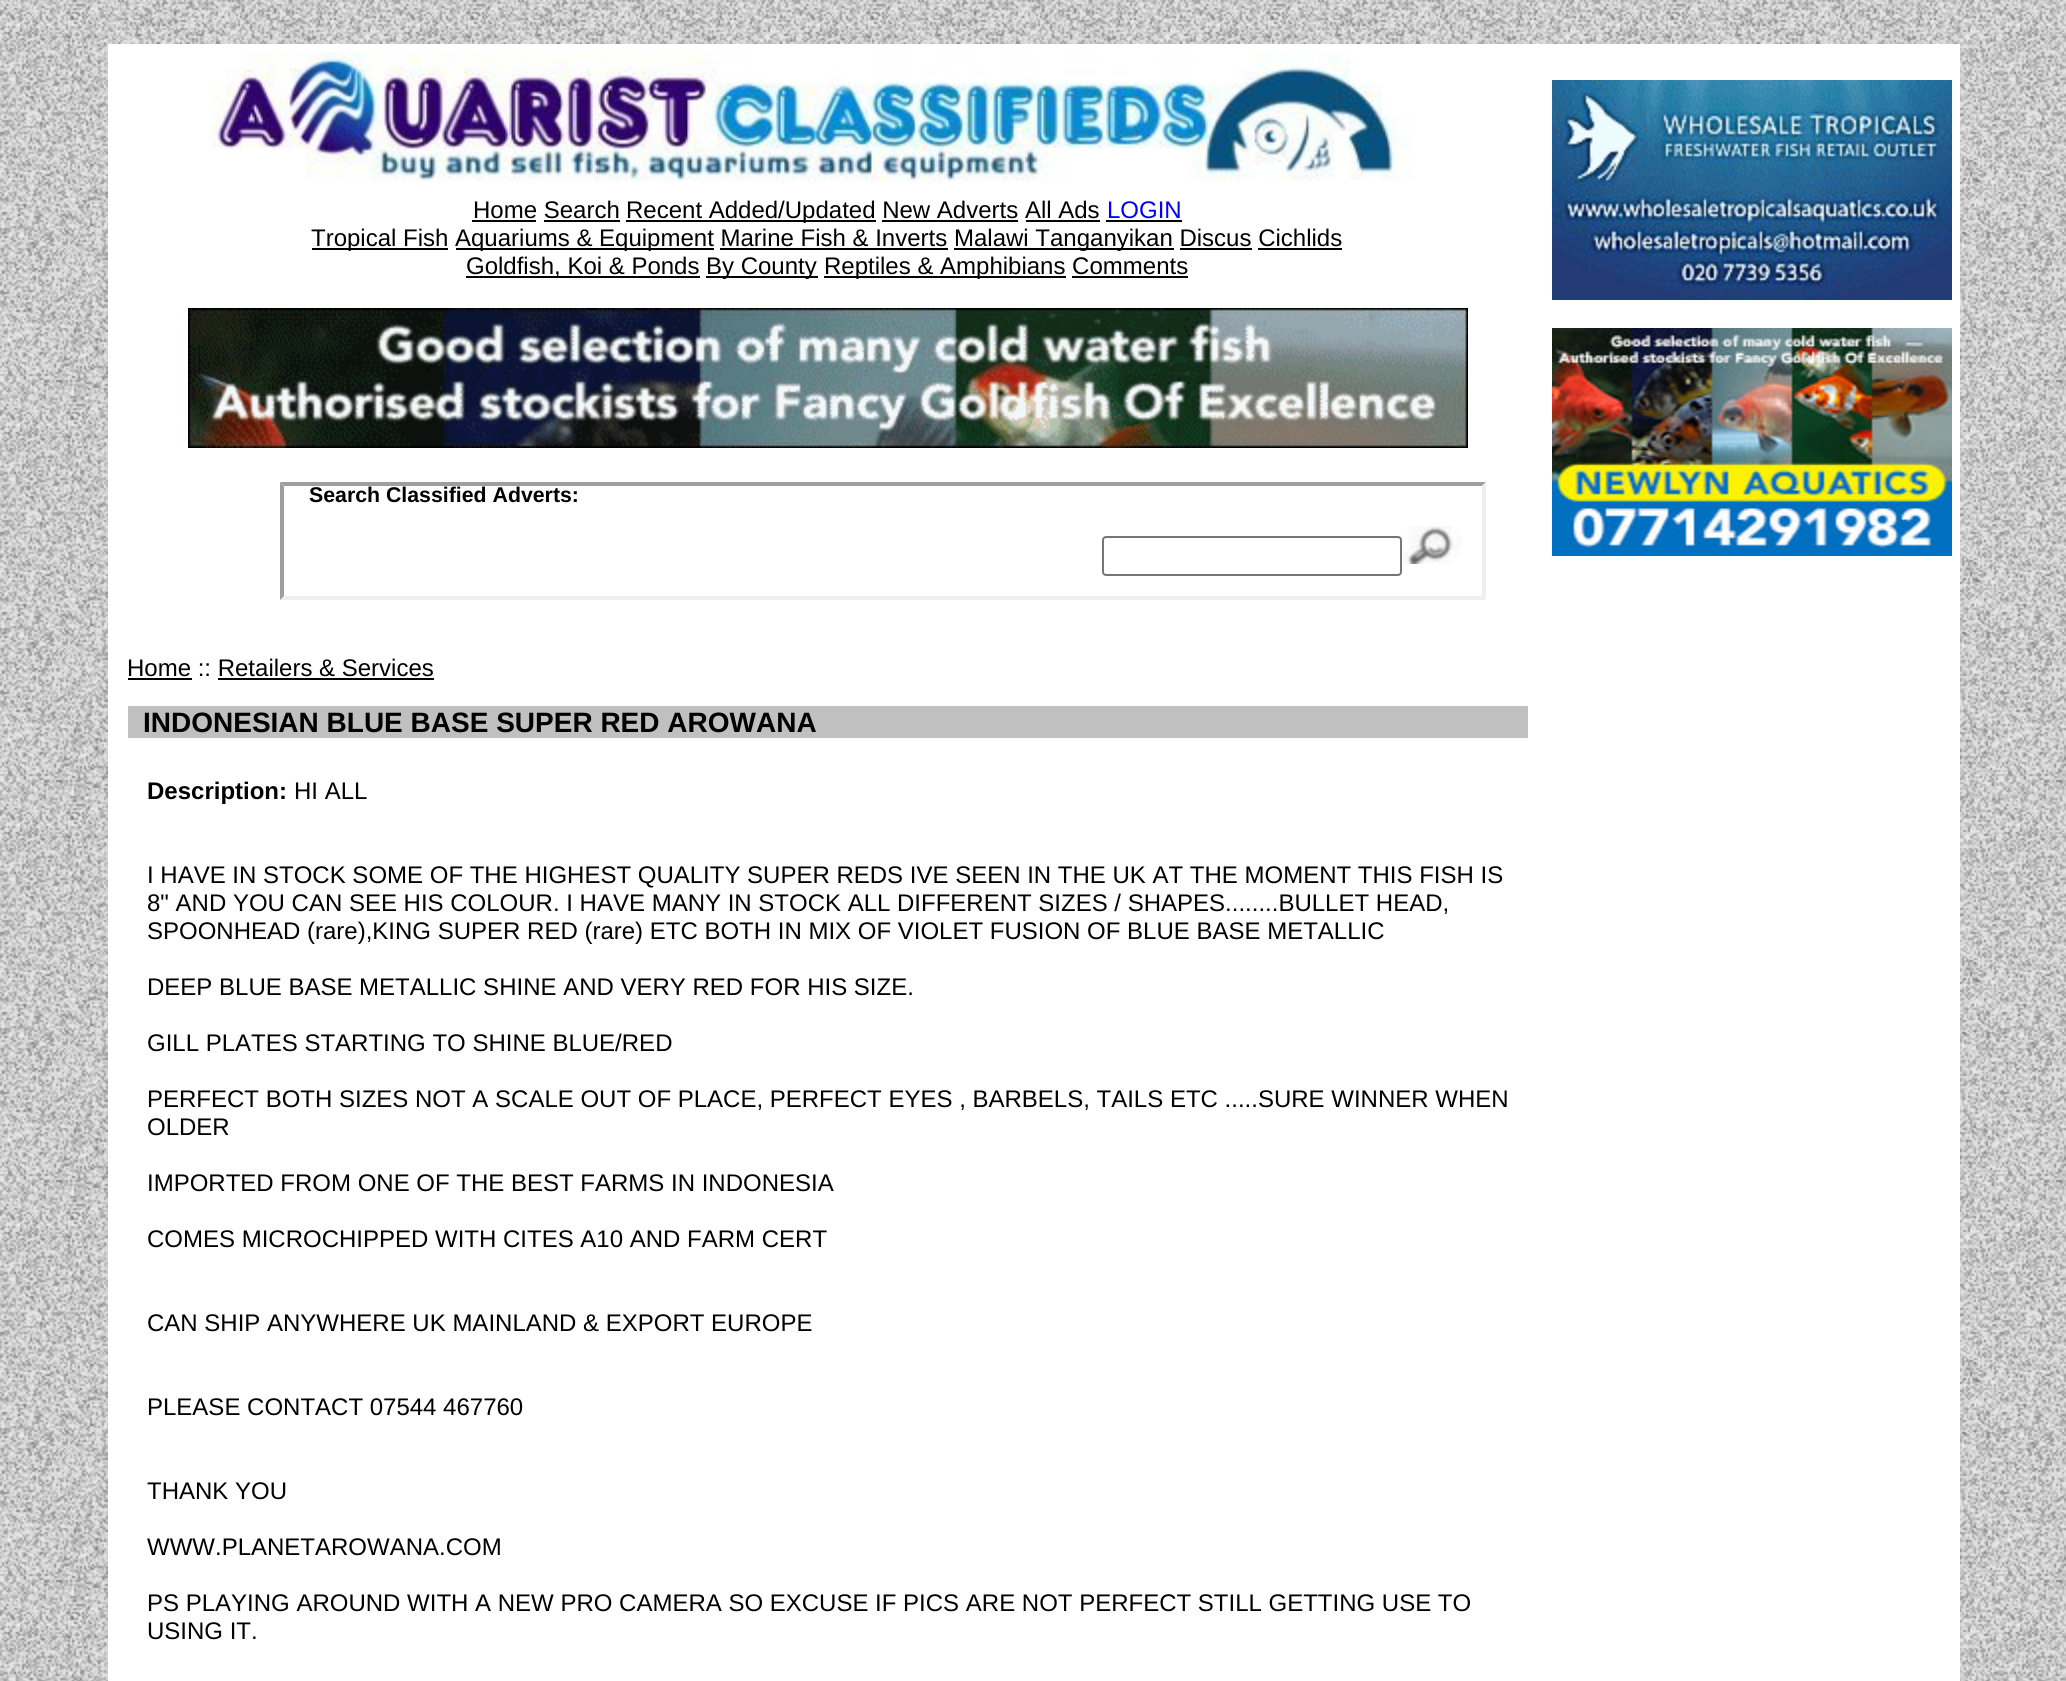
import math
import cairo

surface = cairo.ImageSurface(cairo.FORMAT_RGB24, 2066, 1681)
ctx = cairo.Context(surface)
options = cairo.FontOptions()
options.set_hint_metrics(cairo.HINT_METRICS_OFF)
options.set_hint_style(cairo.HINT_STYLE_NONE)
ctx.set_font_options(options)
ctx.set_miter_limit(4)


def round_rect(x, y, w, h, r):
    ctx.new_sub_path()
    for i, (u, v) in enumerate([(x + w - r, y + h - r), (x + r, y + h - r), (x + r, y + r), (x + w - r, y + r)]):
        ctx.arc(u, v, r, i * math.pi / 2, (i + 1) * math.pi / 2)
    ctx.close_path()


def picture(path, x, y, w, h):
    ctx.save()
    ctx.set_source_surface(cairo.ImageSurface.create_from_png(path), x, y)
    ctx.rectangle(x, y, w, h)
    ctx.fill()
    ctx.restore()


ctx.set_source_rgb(1, 1, 1)
ctx.paint()
picture("img1.png", 0, 0, 2066, 1681)
ctx.set_source_rgb(1, 1, 1)
ctx.rectangle(108, 44, 1852, 1637)
ctx.fill()
picture("img2.png", 210, 52, 1203, 131)
picture("img3.png", 1552, 80, 400, 220)
picture("img4.png", 1552, 328, 400, 228)
ctx.select_font_face("Liberation Sans")
ctx.set_font_size(24)
ctx.set_source_rgb(0, 0, 0)
ctx.move_to(473, 218)
ctx.show_text("Home Search")
ctx.rectangle(472, 220, 64, 2)
ctx.fill()
ctx.rectangle(626, 220, 250, 2)
ctx.fill()
ctx.move_to(626, 218)
ctx.show_text("Recent Added/Updated New Adverts All Ads")
ctx.set_source_rgb(0, 0, 1)
ctx.move_to(1107, 218)
ctx.show_text("LOGIN")
ctx.set_source_rgb(0, 0, 0)
ctx.rectangle(1106, 220, 76, 2)
ctx.fill()
ctx.rectangle(544, 220, 76, 2)
ctx.fill()
ctx.rectangle(882, 220, 136, 2)
ctx.fill()
ctx.rectangle(1026, 220, 74, 2)
ctx.fill()
ctx.rectangle(312, 248, 136, 2)
ctx.fill()
ctx.move_to(311, 246)
ctx.show_text("Tropical Fish")
ctx.rectangle(456, 248, 258, 2)
ctx.fill()
ctx.move_to(455, 246)
ctx.show_text("Aquariums & Equipment Marine Fish & Inverts")
ctx.rectangle(954, 248, 220, 2)
ctx.fill()
ctx.move_to(954, 246)
ctx.show_text("Malawi Tanganyikan Discus Cichlids")
ctx.rectangle(720, 248, 228, 2)
ctx.fill()
ctx.rectangle(1180, 248, 72, 2)
ctx.fill()
ctx.rectangle(1258, 248, 84, 2)
ctx.fill()
ctx.rectangle(466, 276, 234, 2)
ctx.fill()
ctx.move_to(466, 274)
ctx.show_text("Goldfish, Koi & Ponds")
ctx.rectangle(706, 276, 112, 2)
ctx.fill()
ctx.move_to(706, 274)
ctx.show_text("By County")
ctx.rectangle(824, 276, 242, 2)
ctx.fill()
ctx.move_to(824, 274)
ctx.show_text("Reptiles & Amphibians Comments")
ctx.rectangle(1072, 276, 116, 2)
ctx.fill()
picture("img5.png", 188, 308, 1280, 140)
ctx.set_source_rgb(0.624, 0.624, 0.624)
ctx.new_path()
ctx.move_to(280, 482)
ctx.line_to(1486, 482)
ctx.line_to(1482, 486)
ctx.line_to(284, 486)
ctx.close_path()
ctx.fill()
ctx.set_source_rgb(0.937, 0.937, 0.937)
ctx.new_path()
ctx.move_to(1486, 482)
ctx.line_to(1486, 600)
ctx.line_to(1482, 596)
ctx.line_to(1482, 486)
ctx.close_path()
ctx.fill()
ctx.new_path()
ctx.move_to(1486, 600)
ctx.line_to(280, 600)
ctx.line_to(284, 596)
ctx.line_to(1482, 596)
ctx.close_path()
ctx.fill()
ctx.set_source_rgb(0.624, 0.624, 0.624)
ctx.new_path()
ctx.move_to(280, 600)
ctx.line_to(280, 482)
ctx.line_to(284, 486)
ctx.line_to(284, 596)
ctx.close_path()
ctx.fill()
ctx.select_font_face("Liberation Sans", cairo.FONT_SLANT_NORMAL, cairo.FONT_WEIGHT_BOLD)
ctx.set_font_size(21.3)
ctx.set_source_rgb(0, 0, 0)
ctx.move_to(309, 502)
ctx.show_text("Search Classified Adverts:")
round_rect(1103, 537, 298, 38, 3)
ctx.set_source_rgb(0.463, 0.463, 0.463)
ctx.stroke()
picture("img6.png", 1403, 526, 59, 38)
ctx.select_font_face("Liberation Sans")
ctx.set_font_size(24)
ctx.set_source_rgb(0, 0, 0)
ctx.move_to(127, 676)
ctx.show_text("Home :: Retailers & Services")
ctx.rectangle(128, 678, 64, 2)
ctx.fill()
ctx.rectangle(218, 678, 216, 2)
ctx.fill()
ctx.set_source_rgb(0.753, 0.753, 0.753)
ctx.rectangle(128, 706, 1400, 32)
ctx.fill()
ctx.select_font_face("Liberation Sans", cairo.FONT_SLANT_NORMAL, cairo.FONT_WEIGHT_BOLD)
ctx.set_font_size(28)
ctx.set_source_rgb(0, 0, 0)
ctx.move_to(143, 732)
ctx.show_text("INDONESIAN BLUE BASE SUPER RED AROWANA")
ctx.set_font_size(24)
ctx.move_to(147, 799)
ctx.show_text("Description:")
ctx.select_font_face("Liberation Sans")
ctx.move_to(294, 799)
ctx.show_text("HI ALL")
ctx.move_to(147, 883)
ctx.show_text("I HAVE IN STOCK SOME OF THE HIGHEST QUALITY SUPER REDS IVE SEEN IN THE UK AT THE MOMENT THIS FISH IS")
ctx.move_to(147, 911)
ctx.show_text("8\" AND YOU CAN SEE HIS COLOUR. I HAVE MANY IN STOCK ALL DIFFERENT SIZES / SHAPES........BULLET HEAD,")
ctx.move_to(147, 939)
ctx.show_text("SPOONHEAD (rare),KING SUPER RED (rare) ETC BOTH IN MIX OF VIOLET FUSION OF BLUE BASE METALLIC")
ctx.move_to(147, 995)
ctx.show_text("DEEP BLUE BASE METALLIC SHINE AND VERY RED FOR HIS SIZE.")
ctx.move_to(147, 1051)
ctx.show_text("GILL PLATES STARTING TO SHINE BLUE/RED")
ctx.move_to(147, 1107)
ctx.show_text("PERFECT BOTH SIZES NOT A SCALE OUT OF PLACE, PERFECT EYES , BARBELS, TAILS ETC .....SURE WINNER WHEN")
ctx.move_to(147, 1135)
ctx.show_text("OLDER")
ctx.move_to(147, 1191)
ctx.show_text("IMPORTED FROM ONE OF THE BEST FARMS IN INDONESIA")
ctx.move_to(147, 1247)
ctx.show_text("COMES MICROCHIPPED WITH CITES A10 AND FARM CERT")
ctx.move_to(147, 1331)
ctx.show_text("CAN SHIP ANYWHERE UK MAINLAND & EXPORT EUROPE")
ctx.move_to(147, 1415)
ctx.show_text("PLEASE CONTACT 07544 467760")
ctx.move_to(147, 1499)
ctx.show_text("THANK YOU")
ctx.move_to(147, 1555)
ctx.show_text("WWW.PLANETAROWANA.COM")
ctx.move_to(147, 1611)
ctx.show_text("PS PLAYING AROUND WITH A NEW PRO CAMERA SO EXCUSE IF PICS ARE NOT PERFECT STILL GETTING USE TO")
ctx.move_to(147, 1639)
ctx.show_text("USING IT.")
surface.write_to_png("page.png")
